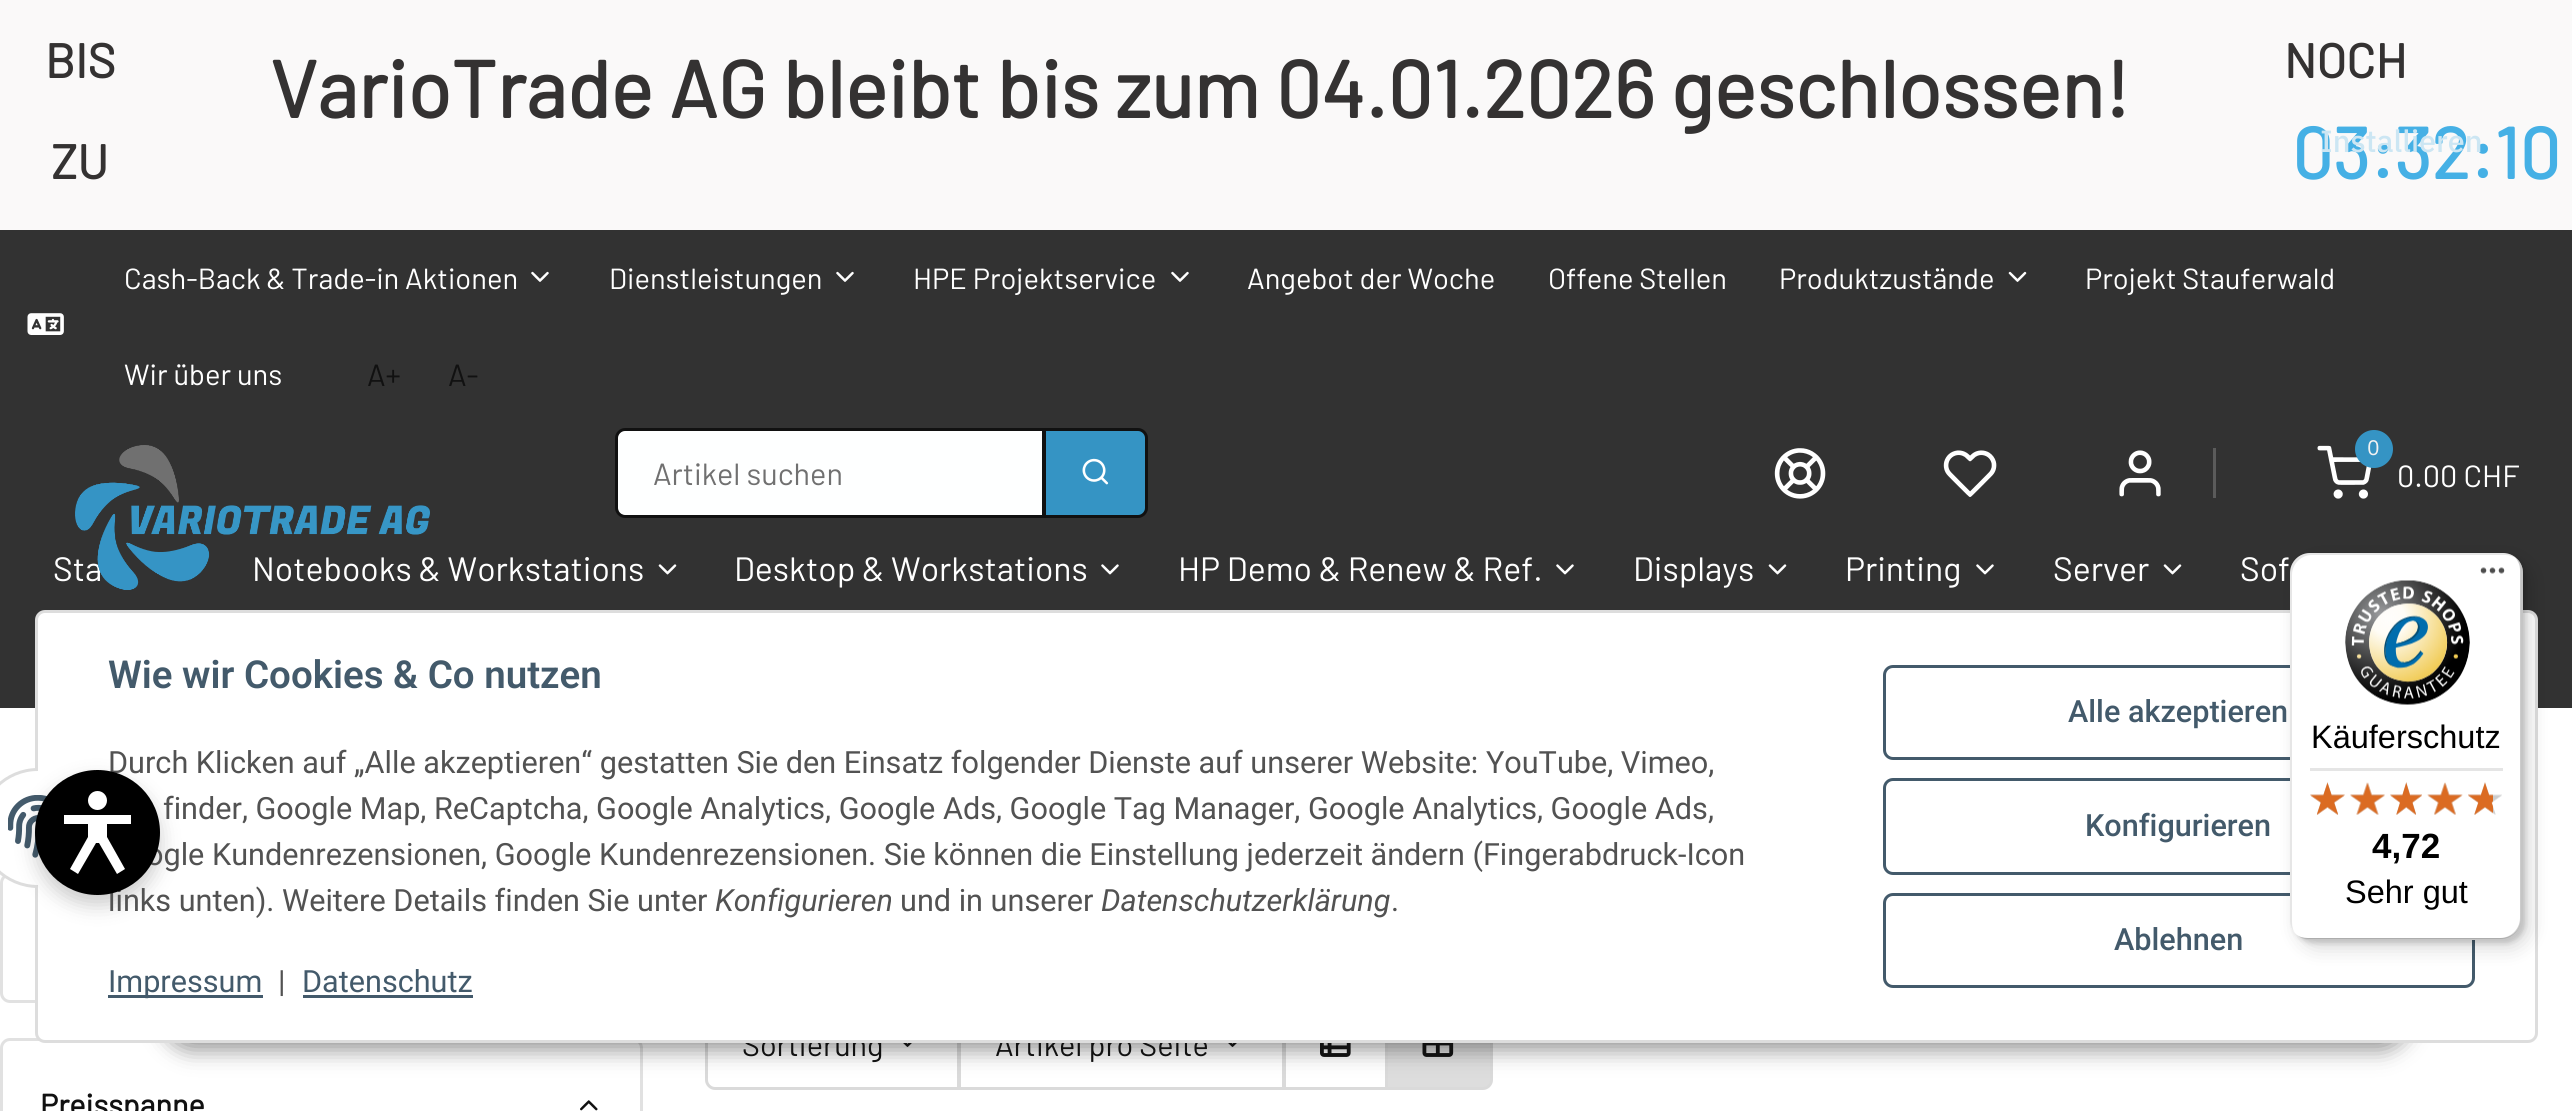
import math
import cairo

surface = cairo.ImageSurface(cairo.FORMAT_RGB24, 2572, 1111)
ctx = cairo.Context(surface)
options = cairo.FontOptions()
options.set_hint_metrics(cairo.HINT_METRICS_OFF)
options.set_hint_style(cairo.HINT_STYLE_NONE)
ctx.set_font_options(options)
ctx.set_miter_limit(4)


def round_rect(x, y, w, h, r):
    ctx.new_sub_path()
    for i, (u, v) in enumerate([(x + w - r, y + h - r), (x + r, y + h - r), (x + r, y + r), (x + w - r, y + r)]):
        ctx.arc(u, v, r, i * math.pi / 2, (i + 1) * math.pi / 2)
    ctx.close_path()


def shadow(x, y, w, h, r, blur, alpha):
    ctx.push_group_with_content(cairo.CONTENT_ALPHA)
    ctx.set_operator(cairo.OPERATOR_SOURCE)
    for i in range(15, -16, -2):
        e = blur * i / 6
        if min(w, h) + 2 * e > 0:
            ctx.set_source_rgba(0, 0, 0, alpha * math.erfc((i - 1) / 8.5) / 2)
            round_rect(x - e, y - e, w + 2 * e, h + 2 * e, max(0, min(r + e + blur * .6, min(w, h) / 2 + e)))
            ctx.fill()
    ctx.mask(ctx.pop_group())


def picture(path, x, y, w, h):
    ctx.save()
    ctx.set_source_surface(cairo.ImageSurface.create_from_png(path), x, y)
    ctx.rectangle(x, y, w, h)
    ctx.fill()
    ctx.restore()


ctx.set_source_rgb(1, 1, 1)
ctx.paint()
ctx.set_source_rgb(0.98, 0.973, 0.973)
ctx.rectangle(0, 0, 2572, 230)
ctx.fill()
ctx.select_font_face("Barlow", cairo.FONT_SLANT_NORMAL, cairo.FONT_WEIGHT_BOLD)
ctx.set_font_size(48)
ctx.set_source_rgb(0.204, 0.196, 0.196)
ctx.move_to(45, 78)
ctx.show_text("BIS")
ctx.move_to(51, 179)
ctx.show_text("ZU")
ctx.set_font_size(80)
ctx.move_to(270, 118)
ctx.show_text("VarioTrade AG bleibt bis zum 04.01.2026 geschlossen!")
ctx.set_font_size(48)
ctx.move_to(2284, 78)
ctx.show_text("NOCH")
ctx.set_font_size(72)
ctx.set_source_rgb(0.271, 0.69, 0.898)
ctx.move_to(2292, 179)
ctx.show_text("03:32:10")
ctx.select_font_face("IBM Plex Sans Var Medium")
ctx.set_font_size(30.62)
ctx.set_source_rgb(0.8, 0.902, 0.953)
ctx.move_to(2320, 152)
ctx.show_text("Installieren")
ctx.set_source_rgb(0.196, 0.196, 0.196)
ctx.rectangle(0, 230, 2572, 478)
ctx.fill()
picture("img1.png", 27, 313, 37, 22)
ctx.select_font_face("Barlow")
ctx.set_font_size(29.1)
ctx.set_source_rgb(1, 1, 1)
ctx.move_to(124, 289)
ctx.show_text("Cash-Back & Trade-in Aktionen")
picture("img2.png", 531, 271, 18, 11)
ctx.move_to(609, 289)
ctx.show_text("Dienstleistungen")
picture("img2.png", 836, 271, 18, 11)
ctx.move_to(913, 289)
ctx.show_text("HPE Projektservice")
picture("img2.png", 1171, 271, 18, 11)
ctx.move_to(1247, 289)
ctx.show_text("Angebot der Woche")
ctx.move_to(1548, 289)
ctx.show_text("Offene Stellen")
ctx.move_to(1779, 289)
ctx.show_text("Produktzustände")
picture("img3.png", 2008, 271, 19, 11)
ctx.move_to(2085, 289)
ctx.show_text("Projekt Stauferwald")
ctx.move_to(124, 385)
ctx.show_text("Wir über uns")
ctx.set_font_size(30.62)
ctx.set_source_rgb(0.067, 0.067, 0.067)
ctx.move_to(367, 386)
ctx.show_text("A+")
ctx.move_to(448, 386)
ctx.show_text("A-")
ctx.set_font_size(33.75)
ctx.set_source_rgb(1, 1, 1)
ctx.move_to(53, 581)
ctx.show_text("Sta")
ctx.move_to(252, 581)
ctx.show_text("Notebooks & Workstations")
picture("img4.png", 75, 445, 355, 145)
ctx.set_source_rgb(0.996, 1, 1)
ctx.new_path()
ctx.move_to(624, 430)
ctx.line_to(1043, 430)
ctx.line_to(1043, 515)
ctx.line_to(624, 515)
ctx.curve_to(620.5, 515, 618, 512.5, 618, 509)
ctx.line_to(618, 436)
ctx.curve_to(618, 432.5, 620.5, 430, 624, 430)
ctx.close_path()
ctx.fill()
ctx.new_path()
ctx.move_to(625, 429.5)
ctx.line_to(1043.5, 429.5)
ctx.line_to(1043.5, 516.5)
ctx.line_to(625, 516.5)
ctx.curve_to(620.5, 516.5, 616.5, 512.5, 616.5, 508)
ctx.line_to(616.5, 438)
ctx.curve_to(616.5, 433.5, 620.5, 429.5, 625, 429.5)
ctx.close_path()
ctx.set_source_rgb(0.067, 0.067, 0.067)
ctx.set_line_width(3)
ctx.stroke()
ctx.set_font_size(30.62)
ctx.set_source_rgb(0.439, 0.439, 0.439)
ctx.move_to(653, 485)
ctx.show_text("Artikel suchen")
ctx.set_source_rgb(0.208, 0.58, 0.769)
ctx.new_path()
ctx.move_to(1044.5, 429.5)
ctx.line_to(1138, 429.5)
ctx.curve_to(1142.5, 429.5, 1146.5, 433.5, 1146.5, 438)
ctx.line_to(1146.5, 508)
ctx.curve_to(1146.5, 512.5, 1142.5, 516.5, 1138, 516.5)
ctx.line_to(1044.5, 516.5)
ctx.close_path()
ctx.fill_preserve()
ctx.set_source_rgb(0.067, 0.067, 0.067)
ctx.stroke()
picture("img5.png", 1082, 458, 27, 27)
picture("img6.png", 1774, 448, 52, 51)
picture("img7.png", 1943, 450, 54, 47)
picture("img8.png", 2119, 450, 42, 47)
ctx.set_source_rgb(0.357, 0.357, 0.357)
ctx.rectangle(2213, 448, 3, 50)
ctx.fill()
picture("img9.png", 2317, 445, 55, 54)
ctx.set_source_rgb(0.208, 0.58, 0.769)
ctx.arc(2374, 449, 19, 0, 2 * math.pi)
ctx.fill()
ctx.select_font_face("IBM Plex Sans Var")
ctx.set_font_size(21)
ctx.set_source_rgb(0.949, 0.949, 0.949)
ctx.move_to(2367, 455)
ctx.show_text("0")
ctx.select_font_face("Barlow")
ctx.set_font_size(30.62)
ctx.set_source_rgb(1, 1, 1)
ctx.move_to(2397, 487)
ctx.show_text("0.00 CHF")
picture("img10.png", 658, 564, 19, 11)
ctx.set_font_size(33.75)
ctx.move_to(734, 581)
ctx.show_text("Desktop & Workstations")
picture("img11.png", 1101, 564, 18, 11)
ctx.move_to(1178, 581)
ctx.show_text("HP Demo & Renew & Ref.")
picture("img11.png", 1556, 564, 18, 11)
ctx.move_to(1633, 581)
ctx.show_text("Displays")
picture("img10.png", 1768, 564, 19, 11)
ctx.move_to(1845, 581)
ctx.show_text("Printing")
picture("img11.png", 1976, 564, 18, 11)
ctx.move_to(2053, 581)
ctx.show_text("Server")
picture("img10.png", 2163, 564, 19, 11)
ctx.move_to(2240, 581)
ctx.show_text("Sof")
ctx.new_path()
ctx.move_to(715, 999.5)
ctx.line_to(958.5, 999.5)
ctx.line_to(958.5, 1088.5)
ctx.line_to(715, 1088.5)
ctx.curve_to(710.5, 1088.5, 706.5, 1084.5, 706.5, 1080)
ctx.line_to(706.5, 1008)
ctx.curve_to(706.5, 1003.5, 710.5, 999.5, 715, 999.5)
ctx.close_path()
ctx.set_source_rgb(0.855, 0.855, 0.855)
ctx.stroke()
picture("img25.png", 903, 1043, 9, 4)
ctx.rectangle(959.5, 999.5, 324, 89)
ctx.stroke()
picture("img25.png", 1228, 1043, 9, 4)
ctx.rectangle(1284.5, 999.5, 102, 89)
ctx.stroke()
picture("img26.png", 1320, 1043, 31, 14)
ctx.set_source_rgb(0.867, 0.867, 0.867)
ctx.new_path()
ctx.move_to(1386.5, 999.5)
ctx.line_to(1483, 999.5)
ctx.curve_to(1487.5, 999.5, 1491.5, 1003.5, 1491.5, 1008)
ctx.line_to(1491.5, 1080)
ctx.curve_to(1491.5, 1084.5, 1487.5, 1088.5, 1483, 1088.5)
ctx.line_to(1386.5, 1088.5)
ctx.close_path()
ctx.fill_preserve()
ctx.set_source_rgb(0.855, 0.855, 0.855)
ctx.stroke()
picture("img27.png", 1422, 1043, 32, 14)
round_rect(1.5, 874.5, 640, 127, 8.5)
ctx.set_source_rgb(0.882, 0.882, 0.882)
ctx.stroke()
round_rect(1.5, 1039.5, 640, 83, 8.5)
ctx.stroke()
ctx.set_source_rgb(0.067, 0.067, 0.067)
shadow(163, 980, 2247, 70, 35, 11, 0.45)
ctx.set_font_size(30.62)
ctx.set_source_rgb(0.067, 0.067, 0.067)
ctx.move_to(742, 1056)
ctx.show_text("Sortierung")
ctx.move_to(995, 1056)
ctx.show_text("Artikel pro Seite")
ctx.set_source_rgb(1, 1, 1)
round_rect(36.5, 611.5, 2500, 430, 8.5)
ctx.fill_preserve()
ctx.set_source_rgb(0.867, 0.867, 0.867)
ctx.stroke()
ctx.set_source_rgb(1, 1, 1)
ctx.arc(38, 828, 58.5, 0, 2 * math.pi)
ctx.fill_preserve()
ctx.set_source_rgb(0.867, 0.867, 0.867)
ctx.stroke()
ctx.set_source_rgb(1, 1, 1)
ctx.rectangle(38, 768, 60, 120)
ctx.fill()
picture("img12.png", 8, 795, 39, 63)
ctx.set_source_rgb(0, 0, 0)
shadow(35, 780, 125, 125, 62.5, 10, 0.2)
ctx.select_font_face("Roboto")
ctx.set_source_rgb(0.322, 0.322, 0.322)
ctx.move_to(108, 773)
ctx.show_text("Durch Klicken auf „Alle akzeptieren“ gestatten Sie den Einsatz folgender Dienste auf unserer Website: YouTube, Vimeo,")
ctx.move_to(146, 865)
ctx.show_text("ogle Kundenrezensionen, Google Kundenrezensionen. Sie können die Einstellung jederzeit ändern (Fingerabdruck-Icon")
ctx.move_to(108, 911)
ctx.show_text("links unten). Weitere Details finden Sie unter")
ctx.set_source_rgb(0, 0, 0)
ctx.new_path()
ctx.arc(97.5, 832.5, 62.5, 0, 2 * math.pi)
ctx.fill()
ctx.set_source_rgb(1, 1, 1)
ctx.new_path()
ctx.move_to(131, 824)
ctx.line_to(131, 815)
ctx.line_to(64, 815)
ctx.line_to(64, 824)
ctx.line_to(88, 824)
ctx.line_to(88, 837)
ctx.line_to(70, 869)
ctx.line_to(78, 874)
ctx.line_to(96, 843)
ctx.line_to(99, 843)
ctx.line_to(117, 874)
ctx.line_to(125, 869)
ctx.line_to(107, 837)
ctx.line_to(107, 824)
ctx.close_path()
ctx.fill()
ctx.arc(97.5, 800.5, 9.5, 0, 2 * math.pi)
ctx.fill()
ctx.select_font_face("Roboto SemiBold")
ctx.set_font_size(38.5)
ctx.set_source_rgb(0.263, 0.353, 0.42)
ctx.move_to(108, 688)
ctx.show_text("Wie wir Cookies & Co nutzen")
ctx.select_font_face("Roboto")
ctx.set_font_size(30.62)
ctx.set_source_rgb(0.322, 0.322, 0.322)
ctx.move_to(163, 819)
ctx.show_text("finder, Google Map, ReCaptcha, Google Analytics, Google Ads, Google Tag Manager, Google Analytics, Google Ads,")
ctx.select_font_face("Roboto", cairo.FONT_SLANT_ITALIC)
ctx.move_to(715, 911)
ctx.show_text("Konfigurieren")
ctx.select_font_face("Roboto")
ctx.move_to(900, 911)
ctx.show_text("und in unserer")
ctx.select_font_face("Roboto", cairo.FONT_SLANT_ITALIC)
ctx.move_to(1101, 911)
ctx.show_text("Datenschutzerklärung")
ctx.select_font_face("Roboto")
ctx.move_to(1391, 911)
ctx.show_text(".")
ctx.set_source_rgb(0.263, 0.353, 0.42)
ctx.rectangle(108, 995, 155, 3)
ctx.fill()
ctx.move_to(108, 992)
ctx.show_text("Impressum")
ctx.set_source_rgb(0.322, 0.322, 0.322)
ctx.move_to(278, 992)
ctx.show_text("|")
ctx.set_source_rgb(0.263, 0.353, 0.42)
ctx.move_to(302, 992)
ctx.show_text("Datenschutz")
ctx.rectangle(303, 995, 170, 3)
ctx.fill()
round_rect(1884.5, 666.5, 589, 92, 8.5)
ctx.stroke()
ctx.select_font_face("Roboto Medium")
ctx.move_to(2068, 722)
ctx.show_text("Alle akzeptieren")
round_rect(1884.5, 779.5, 589, 94, 8.5)
ctx.stroke()
ctx.move_to(2085, 836)
ctx.show_text("Konfigurieren")
round_rect(1884.5, 894.5, 589, 92, 8.5)
ctx.stroke()
ctx.move_to(2114, 950)
ctx.show_text("Ablehnen")
ctx.set_source_rgb(0, 0, 0)
shadow(2298, 560, 232, 388, 20, 10, 0.15)
shadow(2293, 555, 232, 388, 20, 2.5, 0.15)
ctx.set_source_rgb(1, 1, 1)
round_rect(2290, 553, 233, 387, 20)
ctx.fill()
ctx.set_source_rgba(0, 0, 0, 0.1)
ctx.new_path()
ctx.move_to(2312, 555)
ctx.line_to(2505, 555)
ctx.curve_to(2510, 555, 2515, 557, 2518, 560)
ctx.curve_to(2515, 556, 2509, 553, 2503, 553)
ctx.line_to(2310, 553)
ctx.curve_to(2299, 553, 2290, 562, 2290, 573)
ctx.line_to(2290, 920)
ctx.curve_to(2290, 925, 2292, 930, 2296, 934)
ctx.curve_to(2293, 931, 2292, 927, 2292, 922)
ctx.line_to(2292, 575)
ctx.curve_to(2292, 564, 2301, 555, 2312, 555)
ctx.close_path()
ctx.fill()
ctx.set_source_rgba(0, 0, 0, 0.2)
ctx.new_path()
ctx.move_to(2296, 934)
ctx.curve_to(2300, 938, 2305, 940, 2310, 940)
ctx.line_to(2503, 940)
ctx.curve_to(2514, 940, 2523, 931, 2523, 920)
ctx.line_to(2523, 573)
ctx.curve_to(2523, 567, 2520, 561, 2515, 557)
ctx.curve_to(2518, 561, 2520, 565, 2520, 570)
ctx.line_to(2520, 918)
ctx.curve_to(2520, 929, 2511, 938, 2500, 938)
ctx.line_to(2308, 938)
ctx.curve_to(2303, 938, 2299, 937, 2296, 934)
ctx.close_path()
ctx.fill()
ctx.set_source_rgba(0.196, 0.196, 0.196, 0.2)
ctx.new_path()
ctx.move_to(2296, 934)
ctx.curve_to(2300, 938, 2305, 940, 2310, 940)
ctx.line_to(2503, 940)
ctx.curve_to(2514, 940, 2523, 931, 2523, 920)
ctx.line_to(2523, 573)
ctx.curve_to(2523, 567, 2520, 561, 2516, 558)
ctx.curve_to(2519, 561, 2521, 566, 2521, 571)
ctx.line_to(2521, 918)
ctx.curve_to(2521, 930, 2512, 938, 2501, 938)
ctx.line_to(2308, 938)
ctx.curve_to(2303, 938, 2299, 937, 2296, 934)
ctx.close_path()
ctx.fill()
ctx.set_source_rgba(1, 1, 1, 0.3)
ctx.new_path()
ctx.move_to(2295, 933)
ctx.curve_to(2299, 937, 2304, 940, 2310, 940)
ctx.line_to(2503, 940)
ctx.curve_to(2514, 940, 2523, 931, 2523, 920)
ctx.line_to(2523, 573)
ctx.curve_to(2523, 567, 2520, 561, 2516, 558)
ctx.curve_to(2519, 561, 2521, 566, 2521, 571)
ctx.line_to(2521, 919)
ctx.curve_to(2521, 930, 2512, 939, 2501, 939)
ctx.line_to(2309, 939)
ctx.curve_to(2304, 939, 2299, 937, 2295, 933)
ctx.close_path()
ctx.fill()
picture("img13.png", 2480, 567, 25, 7)
picture("img14.png", 2345, 580, 125, 125)
ctx.select_font_face("Liberation Sans")
ctx.set_font_size(32.5)
ctx.set_source_rgb(0, 0, 0)
ctx.move_to(2311, 748)
ctx.show_text("Käuferschutz")
ctx.set_source_rgb(0.898, 0.898, 0.898)
ctx.rectangle(2310, 768, 193, 3)
ctx.fill()
picture("img15.png", 2310, 782, 35, 33)
picture("img16.png", 2350, 783, 35, 32)
picture("img17.png", 2390, 782, 32, 33)
picture("img18.png", 2428, 783, 34, 32)
picture("img19.png", 2468, 782, 34, 33)
picture("img20.png", 2310, 782, 35, 33)
picture("img21.png", 2350, 782, 35, 33)
picture("img22.png", 2390, 782, 32, 33)
picture("img23.png", 2427, 782, 36, 33)
picture("img24.png", 2468, 782, 25, 33)
ctx.select_font_face("Liberation Sans", cairo.FONT_SLANT_NORMAL, cairo.FONT_WEIGHT_BOLD)
ctx.set_font_size(35)
ctx.set_source_rgb(0, 0, 0)
ctx.move_to(2372, 858)
ctx.show_text("4,72")
ctx.select_font_face("Liberation Sans")
ctx.set_font_size(32.5)
ctx.move_to(2345, 903)
ctx.show_text("Sehr gut")
ctx.select_font_face("Barlow", cairo.FONT_SLANT_NORMAL, cairo.FONT_WEIGHT_BOLD)
ctx.set_font_size(30.62)
ctx.set_source_rgb(0.067, 0.067, 0.067)
ctx.move_to(40, 1116)
ctx.show_text("Preisspanne")
picture("img28.png", 580, 1100, 18, 11)
surface.write_to_png("page.png")
